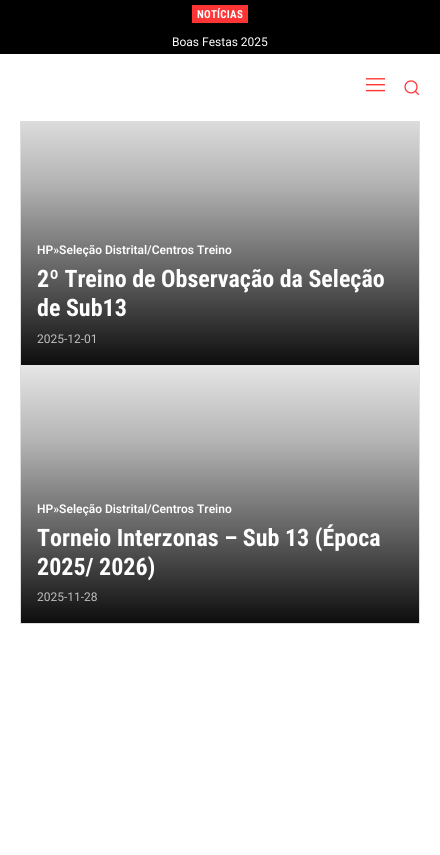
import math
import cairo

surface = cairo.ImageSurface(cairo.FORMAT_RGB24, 440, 855)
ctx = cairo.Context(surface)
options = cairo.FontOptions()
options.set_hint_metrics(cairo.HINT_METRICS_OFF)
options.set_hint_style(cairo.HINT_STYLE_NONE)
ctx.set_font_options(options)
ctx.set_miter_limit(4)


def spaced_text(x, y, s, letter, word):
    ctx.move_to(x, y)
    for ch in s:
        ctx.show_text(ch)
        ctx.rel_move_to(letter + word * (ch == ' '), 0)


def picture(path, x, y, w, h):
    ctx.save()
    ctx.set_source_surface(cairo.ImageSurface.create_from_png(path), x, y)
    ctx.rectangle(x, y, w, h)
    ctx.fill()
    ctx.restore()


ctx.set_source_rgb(1, 1, 1)
ctx.paint()
ctx.rectangle(20.5, 0.5, 399, 623)
ctx.set_source_rgb(0.867, 0.867, 0.867)
ctx.set_line_width(1)
ctx.stroke()
ctx.set_source_rgb(0, 0, 0)
ctx.rectangle(0, 0, 440, 54)
ctx.fill()
ctx.set_source_rgb(1, 0.208, 0.208)
ctx.rectangle(192, 5, 56, 18)
ctx.fill()
ctx.select_font_face("Roboto Condensed", cairo.FONT_SLANT_NORMAL, cairo.FONT_WEIGHT_BOLD)
ctx.set_font_size(11)
ctx.set_source_rgb(1, 1, 1)
spaced_text(197, 18, "NOTÍCIAS", 0.25, 0)
ctx.select_font_face("Roboto")
ctx.set_font_size(12)
ctx.move_to(172, 46)
ctx.show_text("Boas Festas 2025")
ctx.rectangle(20, 54, 400, 67)
ctx.fill()
picture("img1.png", 366, 78, 19, 14)
picture("img2.png", 404, 80, 16, 16)
gradient = cairo.LinearGradient(220, 365, 220, 106)
gradient.add_color_stop_rgba(0, 0.051, 0.051, 0.051, 1)
gradient.add_color_stop_rgba(0.7, 0.702, 0.702, 0.702, 1)
gradient.add_color_stop_rgba(1, 0.902, 0.902, 0.902, 1)
ctx.set_source(gradient)
ctx.rectangle(21, 121, 398, 244)
ctx.fill()
ctx.select_font_face("Roboto SemiBold")
ctx.set_source_rgb(1, 1, 1)
ctx.move_to(37, 254)
ctx.show_text("HP»Seleção Distrital/Centros Treino")
ctx.select_font_face("Roboto Condensed", cairo.FONT_SLANT_NORMAL, cairo.FONT_WEIGHT_BOLD)
ctx.set_font_size(24)
ctx.move_to(37, 287)
ctx.show_text("2º Treino de Observação da Seleção")
ctx.move_to(37, 316)
ctx.show_text("de Sub13")
ctx.select_font_face("Roboto")
ctx.set_font_size(12)
ctx.set_source_rgb(0.749, 0.749, 0.749)
ctx.move_to(37, 343)
ctx.show_text("2025-12-01")
gradient = cairo.LinearGradient(220, 623, 220, 365)
gradient.add_color_stop_rgba(0, 0.051, 0.051, 0.051, 1)
gradient.add_color_stop_rgba(0.7, 0.702, 0.702, 0.702, 1)
gradient.add_color_stop_rgba(1, 0.902, 0.902, 0.902, 1)
ctx.set_source(gradient)
ctx.rectangle(21, 365, 398, 258)
ctx.fill()
ctx.select_font_face("Roboto SemiBold")
ctx.set_source_rgb(1, 1, 1)
ctx.move_to(37, 513)
ctx.show_text("HP»Seleção Distrital/Centros Treino")
ctx.select_font_face("Roboto Condensed", cairo.FONT_SLANT_NORMAL, cairo.FONT_WEIGHT_BOLD)
ctx.set_font_size(24)
ctx.move_to(37, 546)
ctx.show_text("Torneio Interzonas – Sub 13 (Época")
ctx.move_to(37, 575)
ctx.show_text("2025/ 2026)")
ctx.select_font_face("Roboto")
ctx.set_font_size(12)
ctx.set_source_rgb(0.749, 0.749, 0.749)
ctx.move_to(37, 601)
ctx.show_text("2025-11-28")
surface.write_to_png("page.png")
